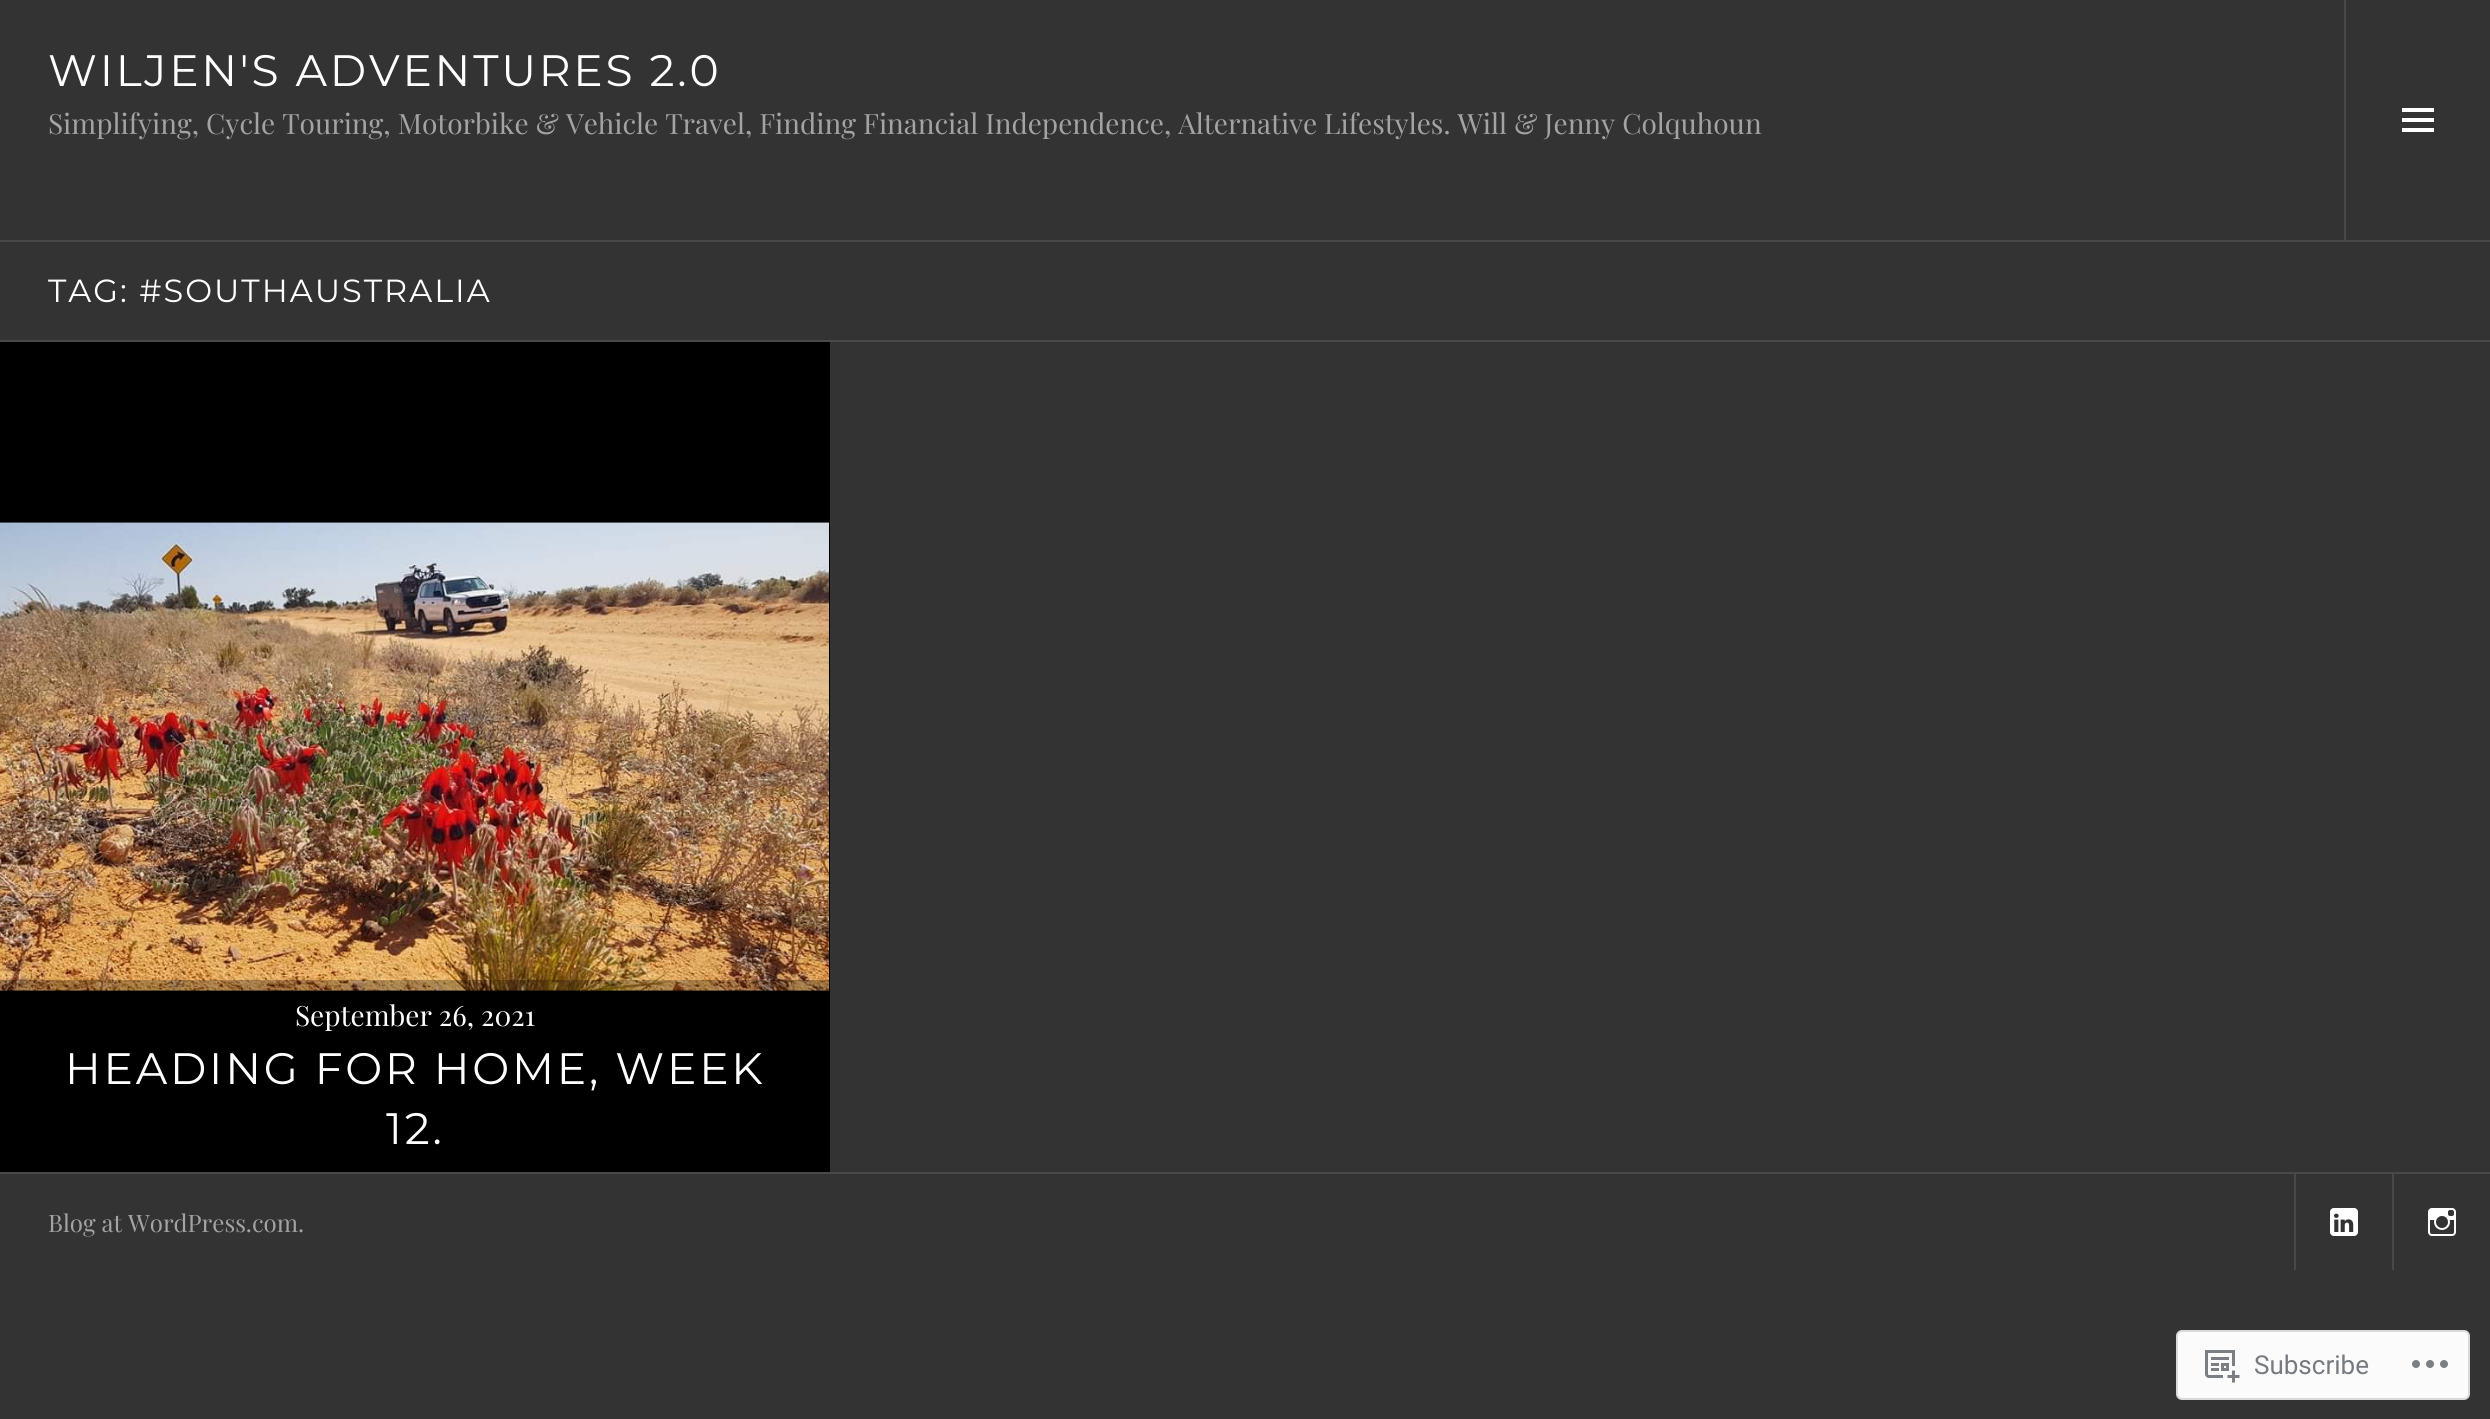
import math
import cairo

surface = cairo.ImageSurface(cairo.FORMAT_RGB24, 2490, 1419)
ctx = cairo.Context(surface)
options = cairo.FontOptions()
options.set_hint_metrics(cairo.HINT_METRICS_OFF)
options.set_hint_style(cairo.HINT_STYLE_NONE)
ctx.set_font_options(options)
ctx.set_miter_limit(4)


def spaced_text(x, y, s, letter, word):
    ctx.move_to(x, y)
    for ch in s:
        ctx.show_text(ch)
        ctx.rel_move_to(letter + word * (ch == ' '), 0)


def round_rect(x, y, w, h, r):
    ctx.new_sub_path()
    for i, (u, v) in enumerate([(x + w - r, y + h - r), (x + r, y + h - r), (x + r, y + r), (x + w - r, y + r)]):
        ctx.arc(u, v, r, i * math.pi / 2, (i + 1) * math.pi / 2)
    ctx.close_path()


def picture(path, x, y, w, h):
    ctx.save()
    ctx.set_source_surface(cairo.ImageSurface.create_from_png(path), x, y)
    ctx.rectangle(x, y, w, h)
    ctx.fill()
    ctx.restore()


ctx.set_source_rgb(0.2, 0.2, 0.2)
ctx.paint()
ctx.set_source_rgb(0.286, 0.286, 0.286)
ctx.rectangle(0, 240, 2490, 2)
ctx.fill()
ctx.select_font_face("Montserrat")
ctx.set_font_size(44)
ctx.set_source_rgb(1, 1, 1)
spaced_text(48, 86, "WILJEN'S ADVENTURES 2.0", 2.75, 0)
ctx.select_font_face("Playfair Display")
ctx.set_font_size(28)
ctx.set_source_rgb(0.639, 0.639, 0.639)
ctx.move_to(48, 134)
ctx.show_text("Simplifying, Cycle Touring, Motorbike & Vehicle Travel, Finding Financial Independence, Alternative Lifestyles. Will & Jenny Colquhoun")
ctx.set_source_rgb(0.286, 0.286, 0.286)
ctx.rectangle(2344, 0, 2, 240)
ctx.fill()
picture("img1.png", 2402, 108, 32, 24)
ctx.rectangle(0, 340, 2490, 2)
ctx.fill()
ctx.select_font_face("Montserrat")
ctx.set_font_size(32)
ctx.set_source_rgb(1, 1, 1)
spaced_text(48, 302, "TAG: #SOUTHAUSTRALIA", 2, 0)
ctx.set_source_rgb(0, 0, 0)
ctx.rectangle(0, 342, 830, 830)
ctx.fill()
picture("img2.png", 0, 522, 829, 469)
ctx.set_source_rgba(0, 0, 0, 0.25)
ctx.rectangle(0, 980, 829, 11)
ctx.fill()
ctx.select_font_face("Playfair Display")
ctx.set_font_size(28)
ctx.set_source_rgb(1, 1, 1)
ctx.move_to(295, 1026)
ctx.show_text("September 26, 2021")
ctx.select_font_face("Montserrat")
ctx.set_font_size(44)
spaced_text(65, 1084, "HEADING FOR HOME, WEEK", 2.75, 0)
spaced_text(386, 1144, "12.", 2.75, 0)
ctx.set_source_rgb(0.286, 0.286, 0.286)
ctx.rectangle(0, 1172, 2490, 2)
ctx.fill()
ctx.select_font_face("Playfair Display")
ctx.set_font_size(24)
ctx.set_source_rgb(0.639, 0.639, 0.639)
ctx.move_to(48, 1232)
ctx.show_text("Blog at WordPress.com.")
ctx.save()
ctx.rectangle(0, 1174, 2490, 96)
ctx.clip()
ctx.rectangle(2295, 1173, 98, 98)
ctx.set_source_rgb(0.286, 0.286, 0.286)
ctx.stroke()
ctx.restore()
picture("img3.png", 2330, 1208, 28, 28)
picture("img4.png", 2428, 1208, 28, 28)
ctx.set_source_rgb(0.984, 0.984, 0.984)
round_rect(2177, 1331, 292, 68, 5)
ctx.fill_preserve()
ctx.set_source_rgb(0.851, 0.851, 0.859)
ctx.stroke()
picture("img5.png", 2205, 1350, 35, 33)
ctx.select_font_face("Roboto")
ctx.set_font_size(26)
ctx.set_source_rgb(0.467, 0.482, 0.502)
ctx.move_to(2254, 1374)
ctx.show_text("Subscribe")
picture("img6.png", 2412, 1360, 36, 8)
surface.write_to_png("page.png")
